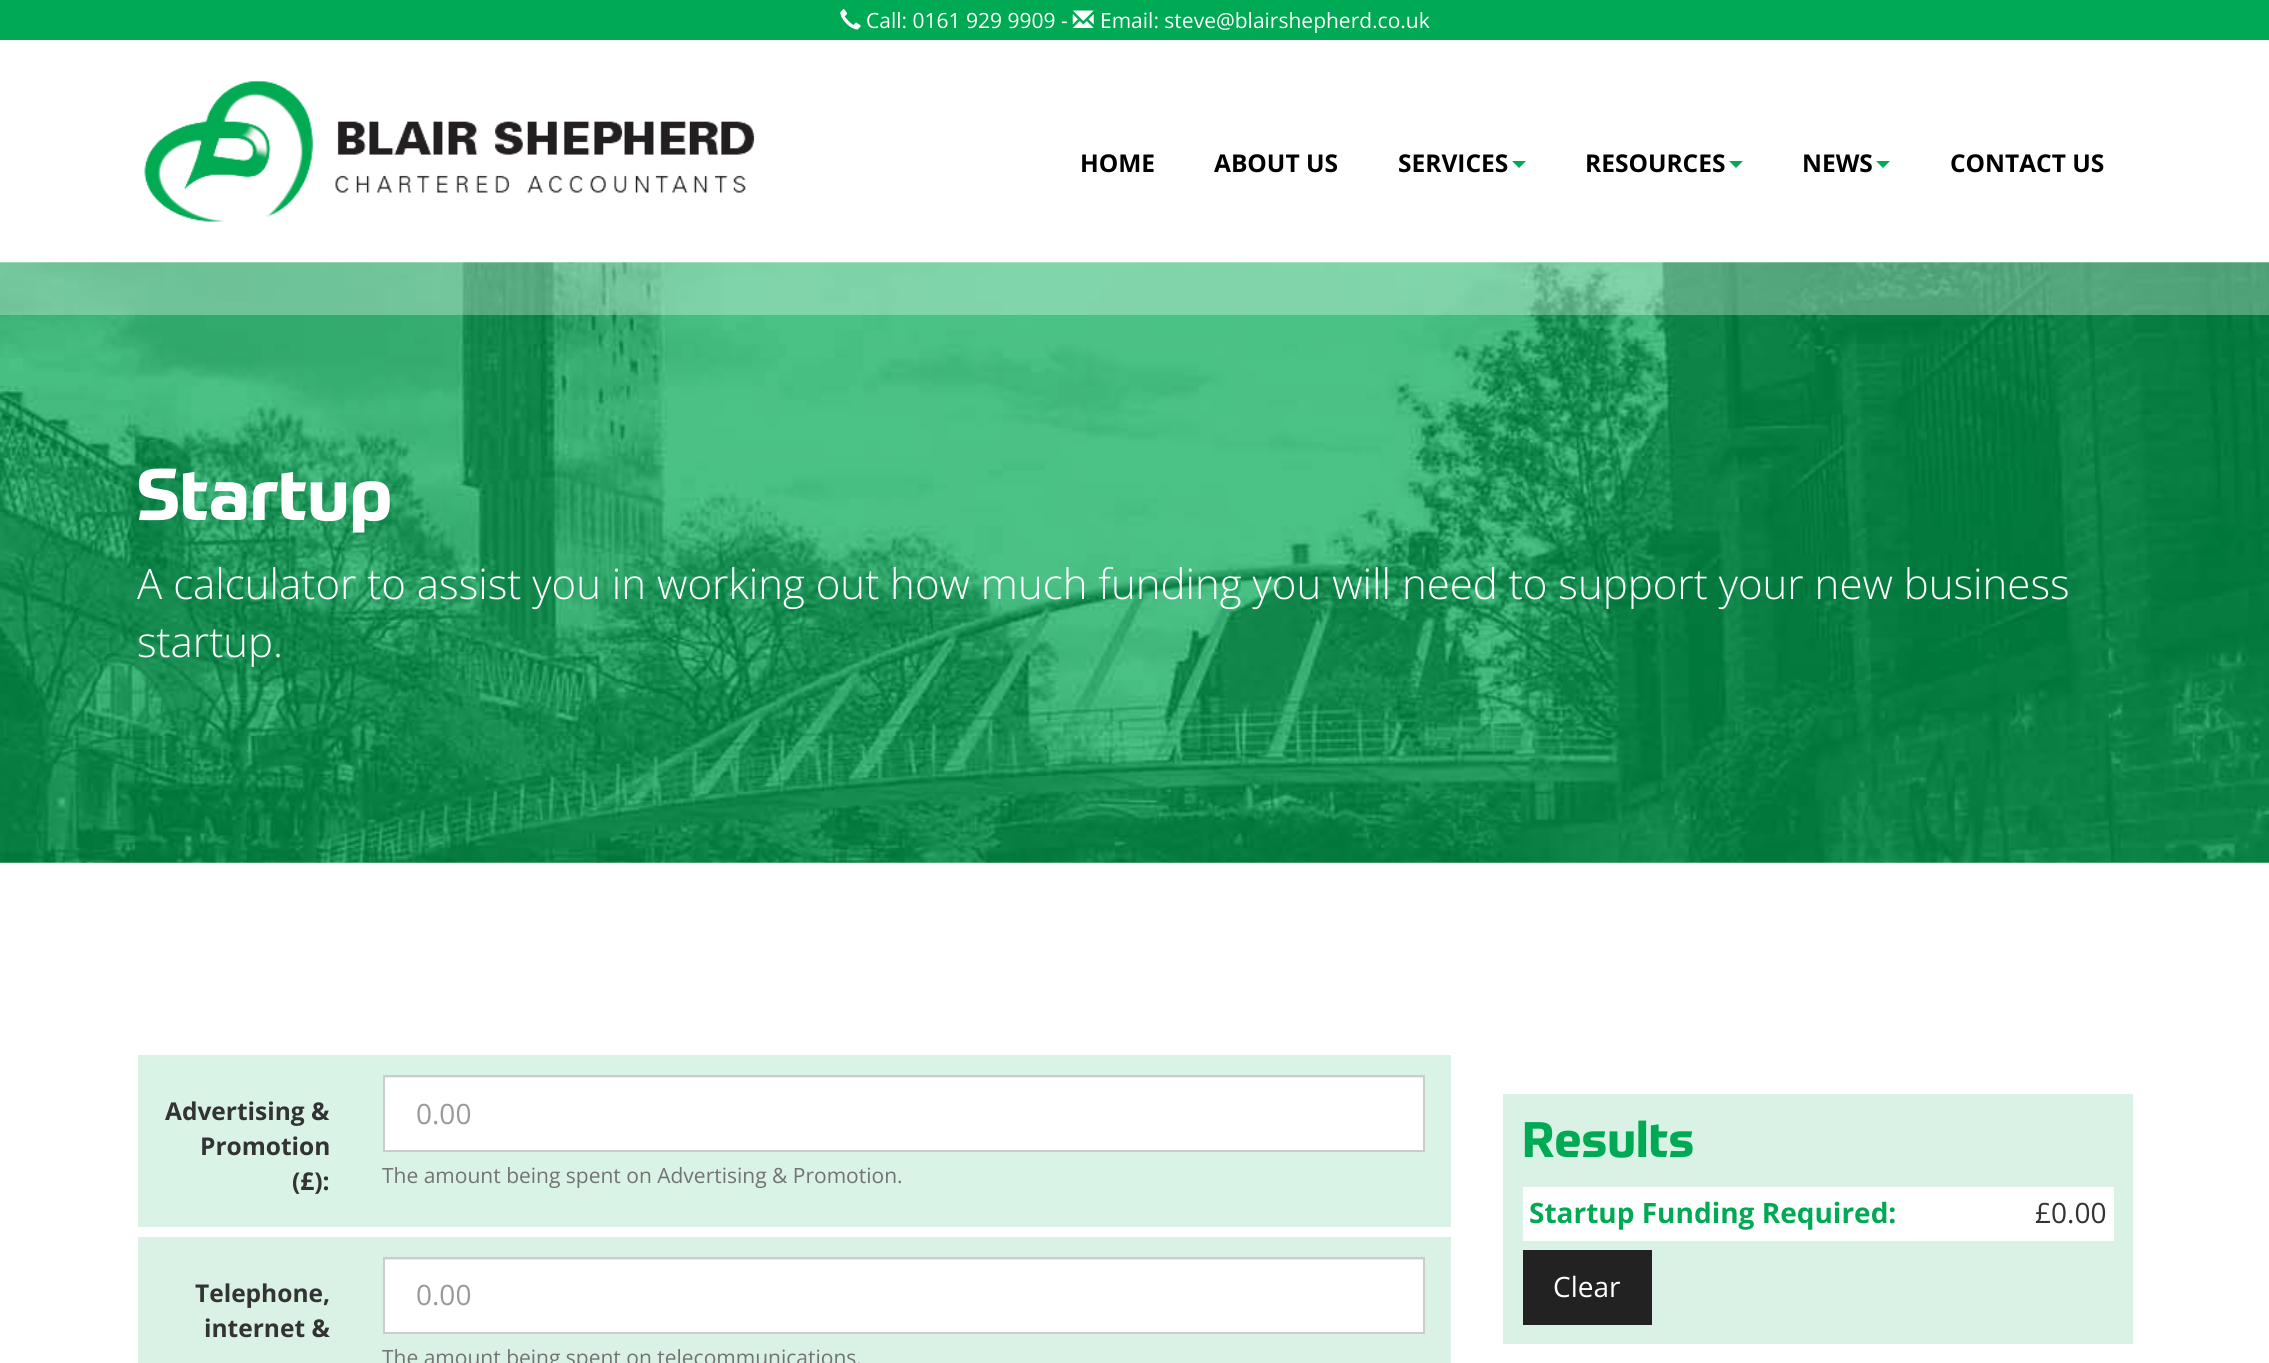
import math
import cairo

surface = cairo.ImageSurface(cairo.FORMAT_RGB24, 2269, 1363)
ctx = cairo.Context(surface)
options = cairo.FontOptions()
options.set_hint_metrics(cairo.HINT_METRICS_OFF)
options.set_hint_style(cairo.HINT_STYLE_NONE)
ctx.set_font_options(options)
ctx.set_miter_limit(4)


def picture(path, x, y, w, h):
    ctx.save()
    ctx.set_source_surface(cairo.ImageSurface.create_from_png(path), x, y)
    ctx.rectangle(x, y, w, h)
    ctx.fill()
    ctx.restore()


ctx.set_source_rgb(1, 1, 1)
ctx.paint()
ctx.set_source_rgb(0, 0.663, 0.325)
ctx.rectangle(0, 0, 2269, 40)
ctx.fill()
picture("img1.png", 840, 9, 21, 21)
ctx.select_font_face("Open Sans")
ctx.set_font_size(21)
ctx.set_source_rgb(1, 1, 1)
ctx.move_to(866, 28)
ctx.show_text("Call: 0161 929 9909 -")
picture("img2.png", 1072, 10, 22, 18)
ctx.move_to(1100, 28)
ctx.show_text("Email: steve@blairshepherd.co.uk")
picture("img3.png", 144, 80, 611, 142)
ctx.select_font_face("Open Sans", cairo.FONT_SLANT_NORMAL, cairo.FONT_WEIGHT_BOLD)
ctx.set_font_size(24.5)
ctx.set_source_rgb(0, 0, 0)
ctx.move_to(1080, 172)
ctx.show_text("HOME")
ctx.move_to(1214, 172)
ctx.show_text("ABOUT US")
ctx.move_to(1398, 172)
ctx.show_text("SERVICES")
ctx.set_source_rgb(0, 0.663, 0.325)
ctx.new_path()
ctx.move_to(1512, 161)
ctx.line_to(1526, 161)
ctx.line_to(1519, 168)
ctx.close_path()
ctx.fill()
ctx.set_source_rgb(0, 0, 0)
ctx.move_to(1585, 172)
ctx.show_text("RESOURCES")
ctx.set_source_rgb(0, 0.663, 0.325)
ctx.new_path()
ctx.move_to(1729, 161)
ctx.line_to(1743, 161)
ctx.line_to(1736, 168)
ctx.close_path()
ctx.fill()
ctx.set_source_rgb(0, 0, 0)
ctx.move_to(1802, 172)
ctx.show_text("NEWS")
ctx.set_source_rgb(0, 0.663, 0.325)
ctx.new_path()
ctx.move_to(1876, 161)
ctx.line_to(1890, 161)
ctx.line_to(1883, 168)
ctx.close_path()
ctx.fill()
ctx.set_source_rgb(0, 0, 0)
ctx.move_to(1950, 172)
ctx.show_text("CONTACT US")
picture("img4.png", 0, 262, 2269, 601)
ctx.set_source_rgba(1, 1, 1, 0.3)
ctx.rectangle(0, 263, 2269, 52)
ctx.fill()
ctx.select_font_face("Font", cairo.FONT_SLANT_NORMAL, cairo.FONT_WEIGHT_BOLD)
ctx.set_font_size(72)
ctx.set_source_rgb(1, 1, 1)
ctx.move_to(137, 520)
ctx.show_text("Startup")
ctx.select_font_face("Open Sans Light")
ctx.set_font_size(42)
ctx.move_to(137, 599)
ctx.show_text("A calculator to assist you in working out how much funding you will need to support your new business")
ctx.move_to(137, 657)
ctx.show_text("startup.")
ctx.set_source_rgb(0.851, 0.953, 0.902)
ctx.rectangle(138, 1055, 1313, 172)
ctx.fill()
ctx.select_font_face("Open Sans", cairo.FONT_SLANT_NORMAL, cairo.FONT_WEIGHT_BOLD)
ctx.set_font_size(24.5)
ctx.set_source_rgb(0.2, 0.2, 0.2)
ctx.move_to(165, 1120)
ctx.show_text("Advertising &")
ctx.move_to(200, 1155)
ctx.show_text("Promotion")
ctx.move_to(292, 1190)
ctx.show_text("(£):")
ctx.set_source_rgb(1, 1, 1)
ctx.rectangle(385, 1078, 1038, 72)
ctx.fill()
ctx.set_source_rgb(0.925, 0.925, 0.925)
ctx.rectangle(385, 1077, 1038, 1)
ctx.fill()
ctx.rectangle(384, 1076, 1040, 75)
ctx.set_source_rgb(0.8, 0.8, 0.8)
ctx.stroke()
ctx.select_font_face("Open Sans")
ctx.set_font_size(28)
ctx.set_source_rgb(0.6, 0.6, 0.6)
ctx.move_to(416, 1124)
ctx.show_text("0.00")
ctx.set_font_size(21)
ctx.set_source_rgb(0.451, 0.451, 0.451)
ctx.move_to(382, 1183)
ctx.show_text("The amount being spent on Advertising & Promotion.")
ctx.set_source_rgb(0.851, 0.949, 0.898)
ctx.rectangle(138, 1237, 1313, 126)
ctx.fill()
ctx.select_font_face("Open Sans", cairo.FONT_SLANT_NORMAL, cairo.FONT_WEIGHT_BOLD)
ctx.set_font_size(24.5)
ctx.set_source_rgb(0.2, 0.2, 0.2)
ctx.move_to(195, 1302)
ctx.show_text("Telephone,")
ctx.move_to(204, 1337)
ctx.show_text("internet &")
ctx.set_source_rgb(1, 1, 1)
ctx.rectangle(385, 1260, 1038, 72)
ctx.fill()
ctx.set_source_rgb(0.925, 0.925, 0.925)
ctx.rectangle(385, 1259, 1038, 1)
ctx.fill()
ctx.rectangle(384, 1258, 1040, 75)
ctx.set_source_rgb(0.8, 0.8, 0.8)
ctx.stroke()
ctx.select_font_face("Open Sans")
ctx.set_font_size(28)
ctx.set_source_rgb(0.6, 0.6, 0.6)
ctx.move_to(416, 1305)
ctx.show_text("0.00")
ctx.set_font_size(21)
ctx.set_source_rgb(0.451, 0.451, 0.451)
ctx.move_to(382, 1365)
ctx.show_text("The amount being spent on telecommunications.")
ctx.set_source_rgb(0.851, 0.949, 0.898)
ctx.rectangle(1503, 1094, 630, 250)
ctx.fill()
ctx.select_font_face("Font", cairo.FONT_SLANT_NORMAL, cairo.FONT_WEIGHT_BOLD)
ctx.set_font_size(49)
ctx.set_source_rgb(0, 0.663, 0.325)
ctx.move_to(1522, 1157)
ctx.show_text("Results")
ctx.set_source_rgb(1, 1, 1)
ctx.rectangle(1523, 1187, 591, 54)
ctx.fill()
ctx.select_font_face("Open Sans", cairo.FONT_SLANT_NORMAL, cairo.FONT_WEIGHT_BOLD)
ctx.set_font_size(28)
ctx.set_source_rgb(0, 0.663, 0.325)
ctx.move_to(1529, 1223)
ctx.show_text("Startup Funding Required:")
ctx.select_font_face("Open Sans")
ctx.set_source_rgb(0.2, 0.2, 0.2)
ctx.move_to(2035, 1223)
ctx.show_text("£0.00")
ctx.set_source_rgb(0.133, 0.133, 0.133)
ctx.rectangle(1523, 1250, 129, 75)
ctx.fill()
ctx.set_source_rgb(1, 1, 1)
ctx.move_to(1553, 1297)
ctx.show_text("Clear")
surface.write_to_png("page.png")
